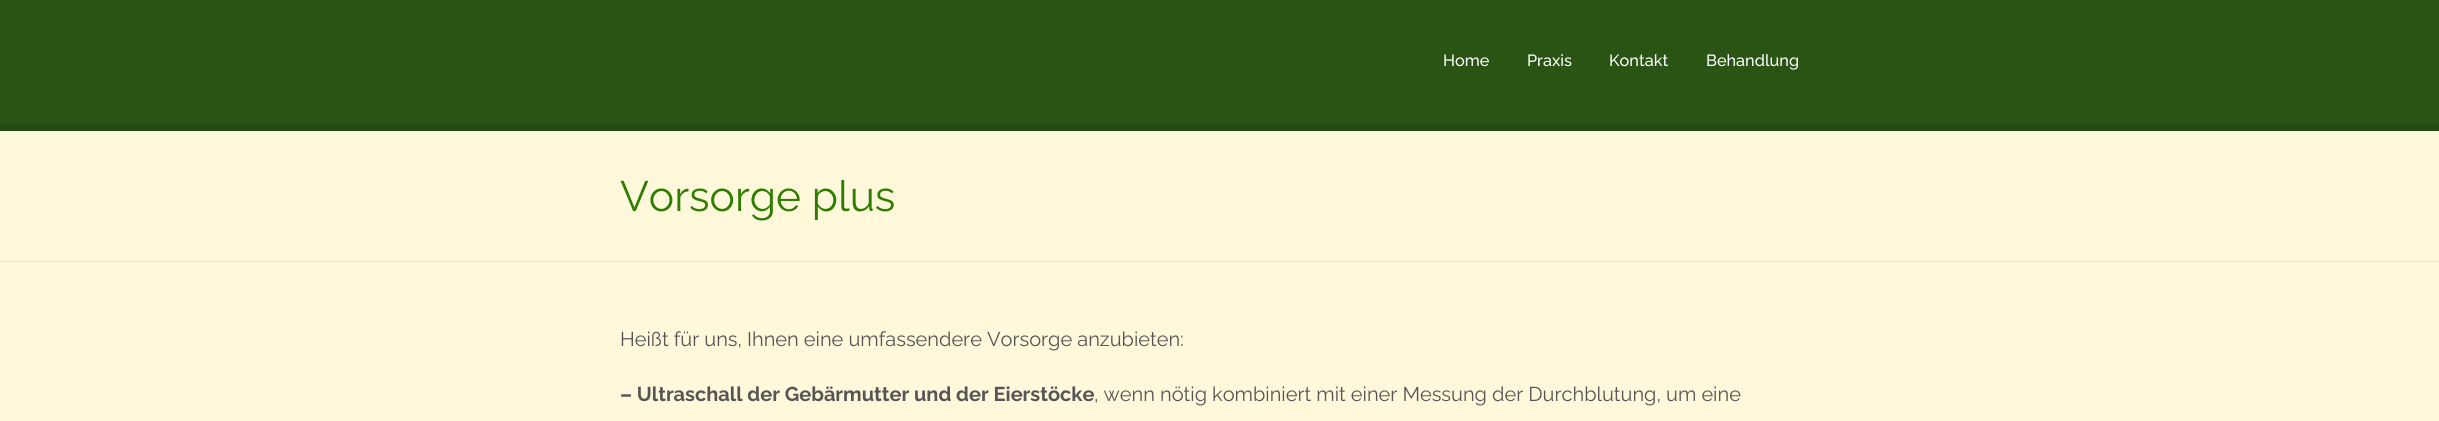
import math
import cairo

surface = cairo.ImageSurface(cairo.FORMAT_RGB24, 2439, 421)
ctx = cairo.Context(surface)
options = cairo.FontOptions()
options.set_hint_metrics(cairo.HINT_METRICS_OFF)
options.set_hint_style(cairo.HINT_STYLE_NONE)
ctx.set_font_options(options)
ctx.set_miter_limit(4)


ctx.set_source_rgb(0.165, 0.329, 0.075)
ctx.paint()
ctx.set_source_rgb(0.149, 0.298, 0.067)
ctx.rectangle(0, 123, 2439, 8)
ctx.fill()
ctx.select_font_face("Raleway Medium")
ctx.set_font_size(16.25)
ctx.set_source_rgb(1, 1, 1)
ctx.move_to(1443, 66)
ctx.show_text("Home")
ctx.move_to(1527, 66)
ctx.show_text("Praxis")
ctx.move_to(1609, 66)
ctx.show_text("Kontakt")
ctx.move_to(1706, 66)
ctx.show_text("Behandlung")
ctx.set_source_rgb(1, 0.969, 0.859)
ctx.rectangle(0, 131, 2439, 290)
ctx.fill()
ctx.set_source_rgb(0.933, 0.882, 0.694)
ctx.rectangle(0, 261, 2439, 1)
ctx.fill()
ctx.select_font_face("Raleway")
ctx.set_font_size(42.5)
ctx.set_source_rgb(0.18, 0.49, 0)
ctx.move_to(620, 211)
ctx.show_text("Vorsorge plus")
ctx.set_font_size(20)
ctx.set_source_rgb(0.333, 0.333, 0.333)
ctx.move_to(620, 346)
ctx.show_text("Heißt für uns, Ihnen eine umfassendere Vorsorge anzubieten:")
ctx.select_font_face("Raleway", cairo.FONT_SLANT_NORMAL, cairo.FONT_WEIGHT_BOLD)
ctx.move_to(620, 401)
ctx.show_text("– Ultraschall der Gebärmutter und der Eierstöcke")
ctx.select_font_face("Raleway")
ctx.move_to(1094, 401)
ctx.show_text(", wenn nötig kombiniert mit einer Messung der Durchblutung, um eine")
surface.write_to_png("page.png")
